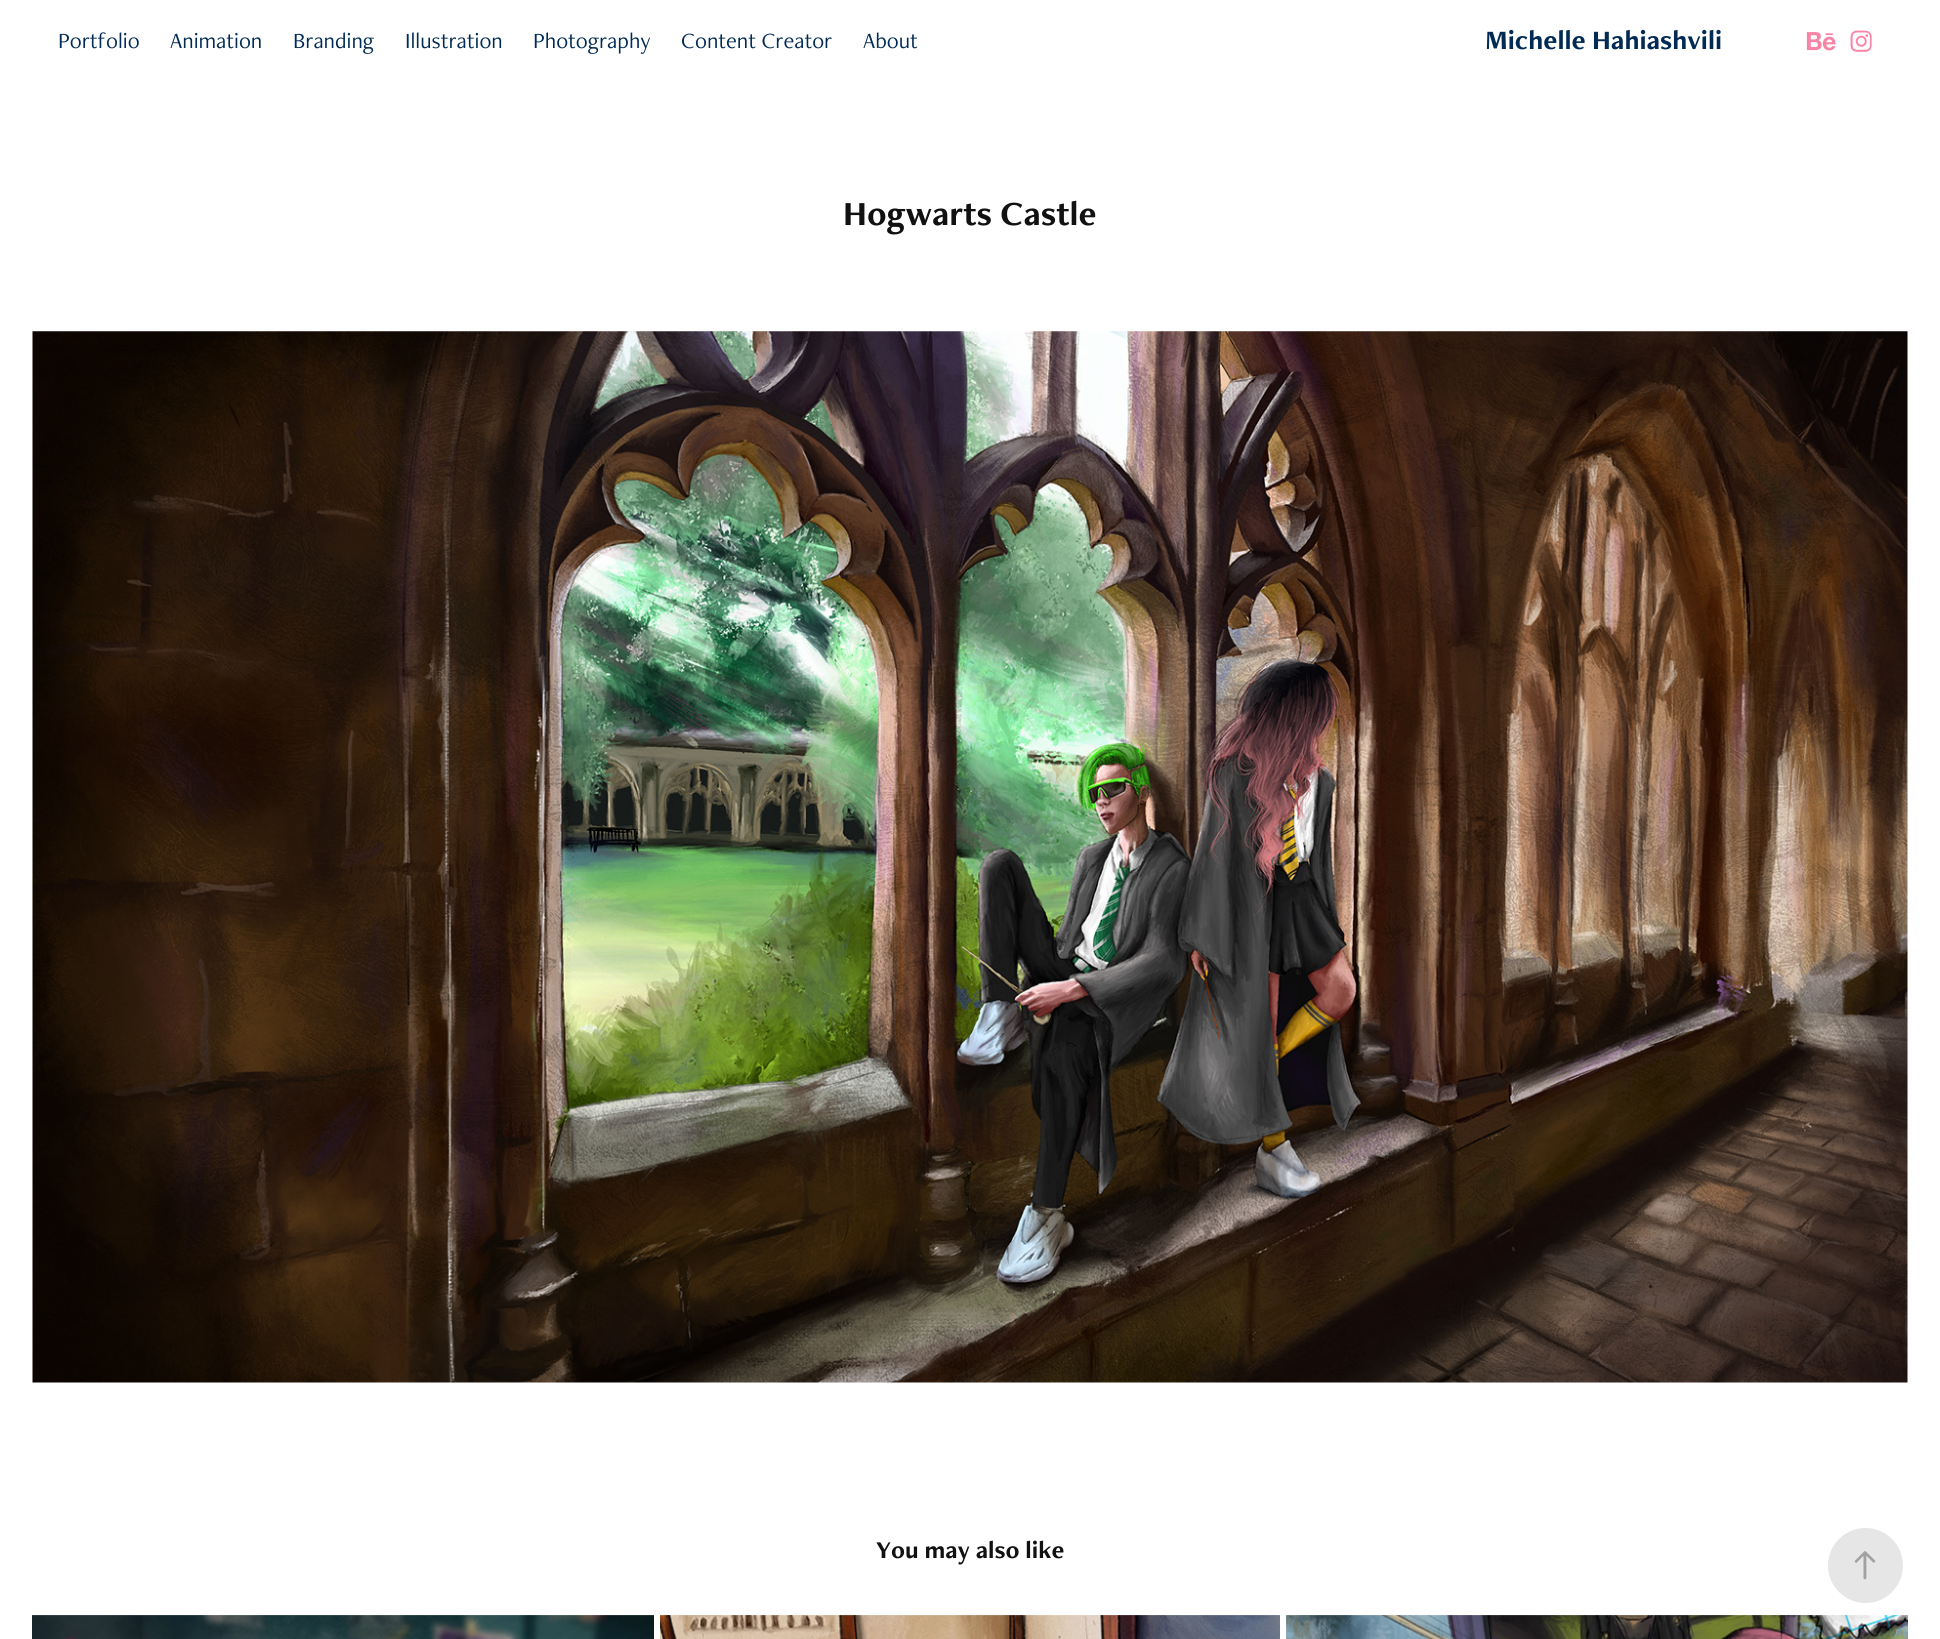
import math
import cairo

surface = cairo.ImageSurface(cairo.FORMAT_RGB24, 1940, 1639)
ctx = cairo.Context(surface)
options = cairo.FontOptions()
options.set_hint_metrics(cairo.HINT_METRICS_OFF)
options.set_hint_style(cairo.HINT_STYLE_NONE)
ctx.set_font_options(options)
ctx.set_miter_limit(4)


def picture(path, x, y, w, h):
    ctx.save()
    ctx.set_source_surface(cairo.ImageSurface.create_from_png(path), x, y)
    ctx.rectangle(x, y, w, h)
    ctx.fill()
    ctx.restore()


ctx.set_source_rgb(1, 1, 1)
ctx.paint()
ctx.select_font_face("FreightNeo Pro")
ctx.set_font_size(22.5)
ctx.set_source_rgb(0.004, 0.169, 0.333)
ctx.move_to(58, 48)
ctx.show_text("Portfolio")
ctx.move_to(170, 48)
ctx.show_text("Animation")
ctx.move_to(293, 48)
ctx.show_text("Branding")
ctx.move_to(405, 48)
ctx.show_text("Illustration")
ctx.move_to(533, 48)
ctx.show_text("Photography")
ctx.move_to(681, 48)
ctx.show_text("Content Creator")
ctx.move_to(863, 48)
ctx.show_text("About")
ctx.select_font_face("FreightNeo Pro", cairo.FONT_SLANT_NORMAL, cairo.FONT_WEIGHT_BOLD)
ctx.set_font_size(27.5)
ctx.move_to(1485, 49)
ctx.show_text("Michelle Hahiashvili")
picture("img1.png", 1806, 32, 30, 19)
picture("img2.png", 1850, 30, 22, 22)
ctx.set_font_size(35)
ctx.set_source_rgb(0.067, 0.067, 0.067)
ctx.move_to(843, 225)
ctx.show_text("Hogwarts Castle")
picture("img3.png", 32, 331, 1876, 1052)
ctx.set_font_size(25)
ctx.move_to(876, 1558)
ctx.show_text("You may also like")
picture("img4.png", 32, 1615, 622, 24)
picture("img5.png", 660, 1615, 620, 24)
picture("img6.png", 1286, 1615, 622, 24)
ctx.set_source_rgb(0.902, 0.902, 0.902)
ctx.arc(1865.5, 1565.5, 37.5, 0, 2 * math.pi)
ctx.fill()
picture("img7.png", 1854, 1551, 22, 29)
surface.write_to_png("page.png")
